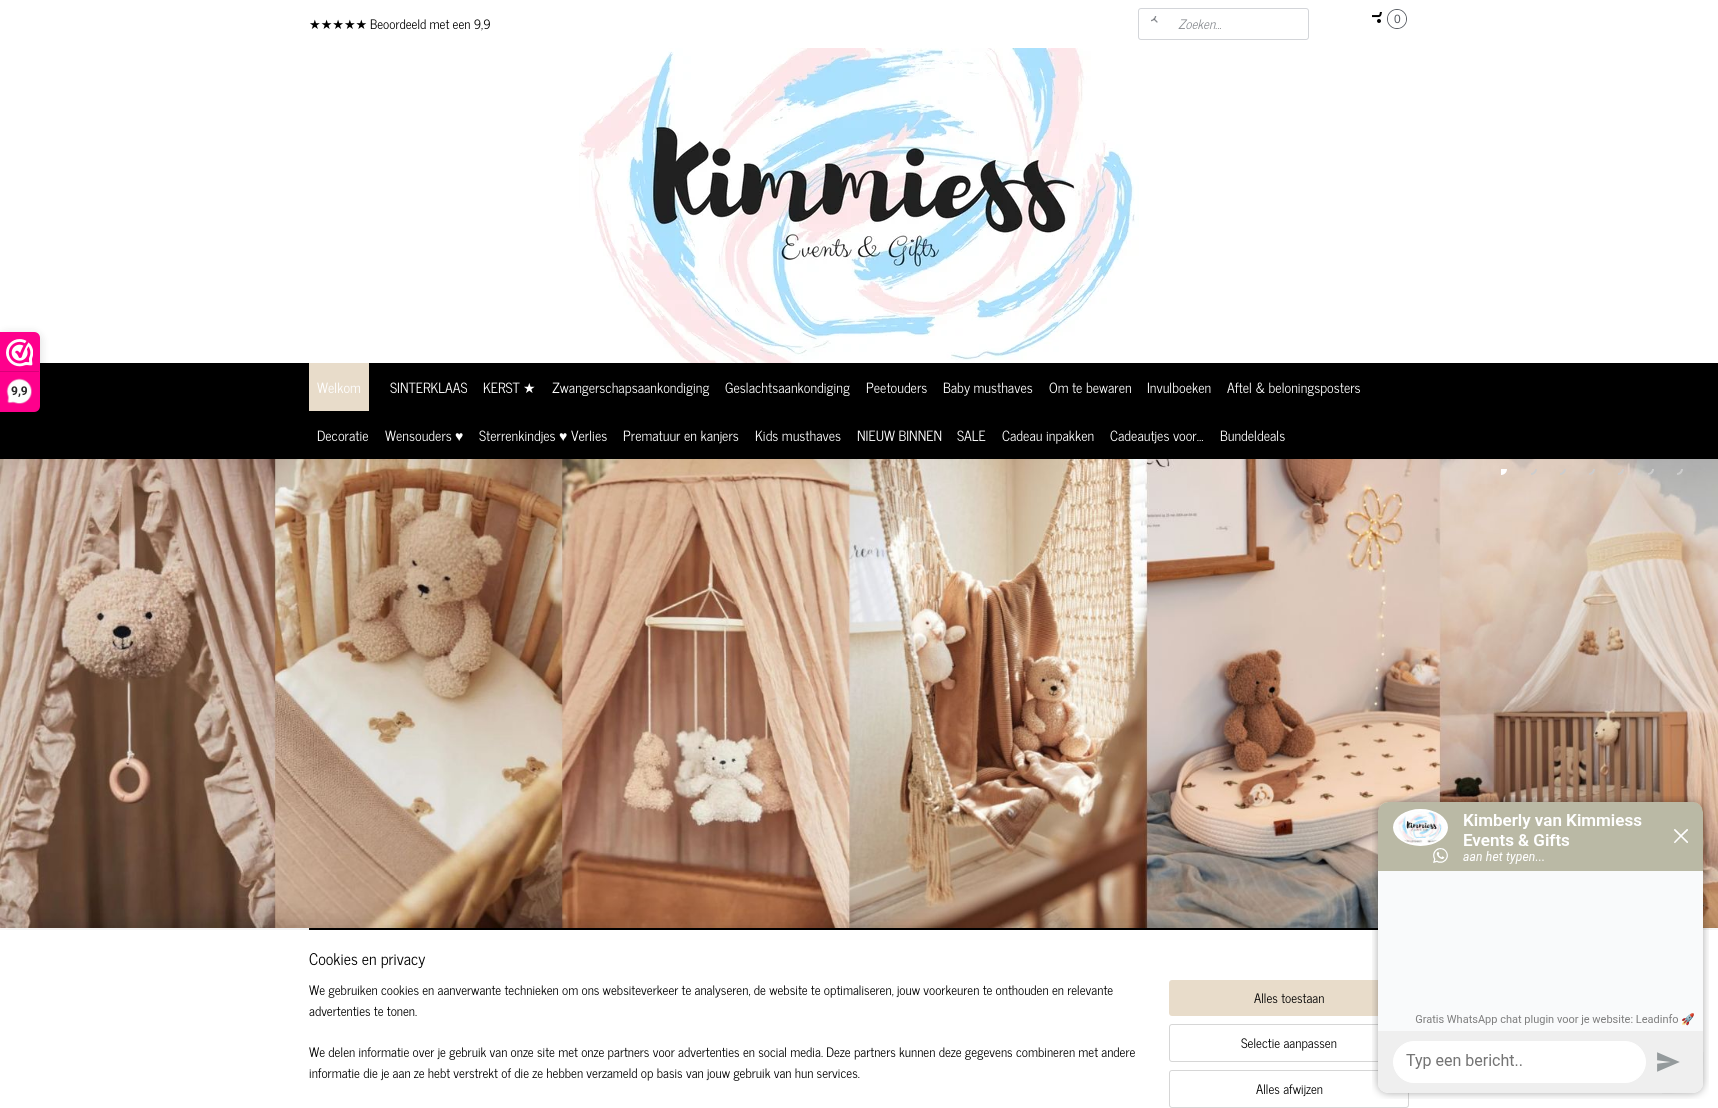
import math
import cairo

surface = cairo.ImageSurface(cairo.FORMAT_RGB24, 1718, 1108)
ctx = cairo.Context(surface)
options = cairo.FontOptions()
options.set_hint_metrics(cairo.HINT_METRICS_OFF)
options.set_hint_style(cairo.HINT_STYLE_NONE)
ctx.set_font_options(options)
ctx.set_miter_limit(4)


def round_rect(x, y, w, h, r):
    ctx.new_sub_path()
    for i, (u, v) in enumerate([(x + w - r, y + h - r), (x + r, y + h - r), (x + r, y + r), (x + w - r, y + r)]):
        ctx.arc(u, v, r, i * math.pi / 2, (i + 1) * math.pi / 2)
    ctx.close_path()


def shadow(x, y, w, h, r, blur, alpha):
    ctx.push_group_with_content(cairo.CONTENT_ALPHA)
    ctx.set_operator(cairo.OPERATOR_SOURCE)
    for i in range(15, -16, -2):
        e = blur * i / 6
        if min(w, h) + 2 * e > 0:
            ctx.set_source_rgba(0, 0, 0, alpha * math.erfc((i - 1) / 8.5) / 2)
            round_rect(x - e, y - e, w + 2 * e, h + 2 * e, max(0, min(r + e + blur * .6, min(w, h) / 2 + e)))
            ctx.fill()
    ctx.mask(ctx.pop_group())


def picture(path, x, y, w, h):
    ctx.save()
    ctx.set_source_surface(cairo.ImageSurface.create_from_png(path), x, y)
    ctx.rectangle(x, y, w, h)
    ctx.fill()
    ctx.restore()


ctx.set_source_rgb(1, 1, 1)
ctx.paint()
ctx.set_source_rgb(0, 0, 0)
ctx.rectangle(0, 363, 1718, 96)
ctx.fill()
ctx.set_source_rgb(0, 0, 0)
shadow(0, 334, 40, 80, 6, 5, 0.15)
ctx.set_source_rgb(0.996, 0, 0.549)
ctx.new_path()
ctx.move_to(0, 332)
ctx.line_to(34, 332)
ctx.curve_to(37.5, 332, 40, 334.5, 40, 338)
ctx.line_to(40, 406)
ctx.curve_to(40, 409.5, 37.5, 412, 34, 412)
ctx.line_to(0, 412)
ctx.close_path()
ctx.fill()
picture("img1.png", 6, 339, 27, 28)
ctx.set_source_rgb(0.847, 0, 0.467)
ctx.rectangle(0, 371, 39, 1)
ctx.fill()
picture("img2.png", 6, 378, 26, 26)
ctx.select_font_face("Roboto", cairo.FONT_SLANT_NORMAL, cairo.FONT_WEIGHT_BOLD)
ctx.set_font_size(12)
ctx.set_source_rgb(0.153, 0.149, 0.149)
ctx.move_to(11, 395)
ctx.show_text("9,9")
picture("img3.png", 12, 928, 297, 2)
ctx.select_font_face("DejaVu Sans")
ctx.set_font_size(13)
ctx.set_source_rgb(0, 0, 0)
ctx.move_to(309, 29)
ctx.show_text("★★★★★")
ctx.select_font_face("News Cycle")
ctx.move_to(370, 29)
ctx.show_text("Beoordeeld met een 9,9")
round_rect(1138.5, 8.5, 170, 31, 2.5)
ctx.set_source_rgb(0.827, 0.835, 0.851)
ctx.set_line_width(1)
ctx.stroke()
picture("img4.png", 1151, 16, 7, 7)
ctx.select_font_face("News Cycle", cairo.FONT_SLANT_ITALIC)
ctx.set_source_rgb(0.537, 0.549, 0.569)
ctx.move_to(1178, 29)
ctx.show_text("Zoeken...")
picture("img5.png", 1372, 12, 10, 11)
ctx.arc(1397, 19, 9.5, 0, 2 * math.pi)
ctx.set_source_rgb(0.341, 0.357, 0.384)
ctx.stroke()
ctx.set_source_rgb(1, 1, 1)
ctx.arc(1397, 19, 9, 0, 2 * math.pi)
ctx.fill()
ctx.select_font_face("Liberation Sans")
ctx.set_font_size(12)
ctx.set_source_rgb(0.341, 0.357, 0.384)
ctx.move_to(1394, 23)
ctx.show_text("0")
picture("img6.png", 579, 48, 560, 315)
ctx.set_source_rgb(0.91, 0.863, 0.792)
ctx.rectangle(309, 363, 60, 48)
ctx.fill()
ctx.select_font_face("News Cycle")
ctx.set_font_size(14)
ctx.set_source_rgb(1, 1, 1)
ctx.move_to(317, 393)
ctx.show_text("Welkom")
ctx.move_to(390, 393)
ctx.show_text("SINTERKLAAS")
ctx.move_to(483, 393)
ctx.show_text("KERST")
ctx.select_font_face("DejaVu Sans")
ctx.move_to(523, 393)
ctx.show_text("★")
ctx.select_font_face("News Cycle")
ctx.move_to(552, 393)
ctx.show_text("Zwangerschapsaankondiging")
ctx.move_to(725, 393)
ctx.show_text("Geslachtsaankondiging")
ctx.move_to(866, 393)
ctx.show_text("Peetouders")
ctx.move_to(943, 393)
ctx.show_text("Baby musthaves")
ctx.move_to(1049, 393)
ctx.show_text("Om te bewaren")
ctx.move_to(1147, 393)
ctx.show_text("Invulboeken")
ctx.move_to(1227, 393)
ctx.show_text("Aftel & beloningsposters")
ctx.move_to(317, 441)
ctx.show_text("Decoratie")
ctx.move_to(385, 441)
ctx.show_text("Wensouders")
ctx.select_font_face("Liberation Sans")
ctx.move_to(455, 441)
ctx.show_text("♥")
ctx.select_font_face("News Cycle")
ctx.move_to(479, 441)
ctx.show_text("Sterrenkindjes")
ctx.select_font_face("Liberation Sans")
ctx.move_to(559, 441)
ctx.show_text("♥")
ctx.select_font_face("News Cycle")
ctx.move_to(571, 441)
ctx.show_text("Verlies")
ctx.move_to(623, 441)
ctx.show_text("Prematuur en kanjers")
ctx.move_to(755, 441)
ctx.show_text("Kids musthaves")
ctx.move_to(857, 441)
ctx.show_text("NIEUW BINNEN")
ctx.move_to(957, 441)
ctx.show_text("SALE")
ctx.move_to(1002, 441)
ctx.show_text("Cadeau inpakken")
ctx.move_to(1110, 441)
ctx.show_text("Cadeautjes voor...")
ctx.move_to(1220, 441)
ctx.show_text("Bundeldeals")
picture("img7.png", 0, 459, 1718, 469)
picture("img8.png", 1501, 469, 6, 6)
picture("img9.png", 1531, 469, 6, 6)
picture("img10.png", 1560, 469, 6, 6)
picture("img11.png", 1589, 469, 6, 6)
picture("img12.png", 1618, 469, 6, 6)
picture("img13.png", 1648, 469, 6, 6)
picture("img14.png", 1677, 469, 6, 6)
ctx.set_source_rgb(0, 0, 0)
ctx.rectangle(309, 928, 1069, 2)
ctx.fill()
ctx.set_source_rgb(0, 0, 0)
shadow(10, 940, 1698, 158, 0, 18, 0.2)
ctx.set_source_rgb(1, 1, 1)
ctx.rectangle(0, 930, 1718, 178)
ctx.fill()
ctx.set_font_size(16)
ctx.set_source_rgb(0, 0, 0)
ctx.move_to(309, 965)
ctx.show_text("Cookies en privacy")
ctx.set_font_size(13)
ctx.move_to(309, 995)
ctx.show_text("We gebruiken cookies en aanverwante technieken om ons websiteverkeer te analyseren, de website te optimaliseren, jouw voorkeuren te onthouden en relevante")
ctx.move_to(309, 1016)
ctx.show_text("advertenties te tonen.")
ctx.move_to(309, 1057)
ctx.show_text("We delen informatie over je gebruik van onze site met onze partners voor advertenties en social media. Deze partners kunnen deze gegevens combineren met andere")
ctx.move_to(309, 1078)
ctx.show_text("informatie die je aan ze hebt verstrekt of die ze hebben verzameld op basis van jouw gebruik van hun services.")
ctx.set_source_rgb(0.91, 0.863, 0.792)
round_rect(1169, 980, 240, 36, 3)
ctx.fill()
ctx.set_source_rgb(0, 0, 0)
ctx.move_to(1254, 1003)
ctx.show_text("Alles toestaan")
round_rect(1169.5, 1024.5, 239, 37, 2.5)
ctx.set_source_rgb(0.839, 0.839, 0.839)
ctx.stroke()
ctx.set_source_rgb(0, 0, 0)
ctx.move_to(1241, 1048)
ctx.show_text("Selectie aanpassen")
round_rect(1169.5, 1070.5, 239, 37, 2.5)
ctx.set_source_rgb(0.839, 0.839, 0.839)
ctx.stroke()
ctx.set_source_rgb(0, 0, 0)
ctx.move_to(1256, 1094)
ctx.show_text("Alles afwijzen")
picture("img16.png", 1662, 1052, 42, 42)
picture("img15.png", 1372, 796, 337, 303)
surface.write_to_png("page.png")
